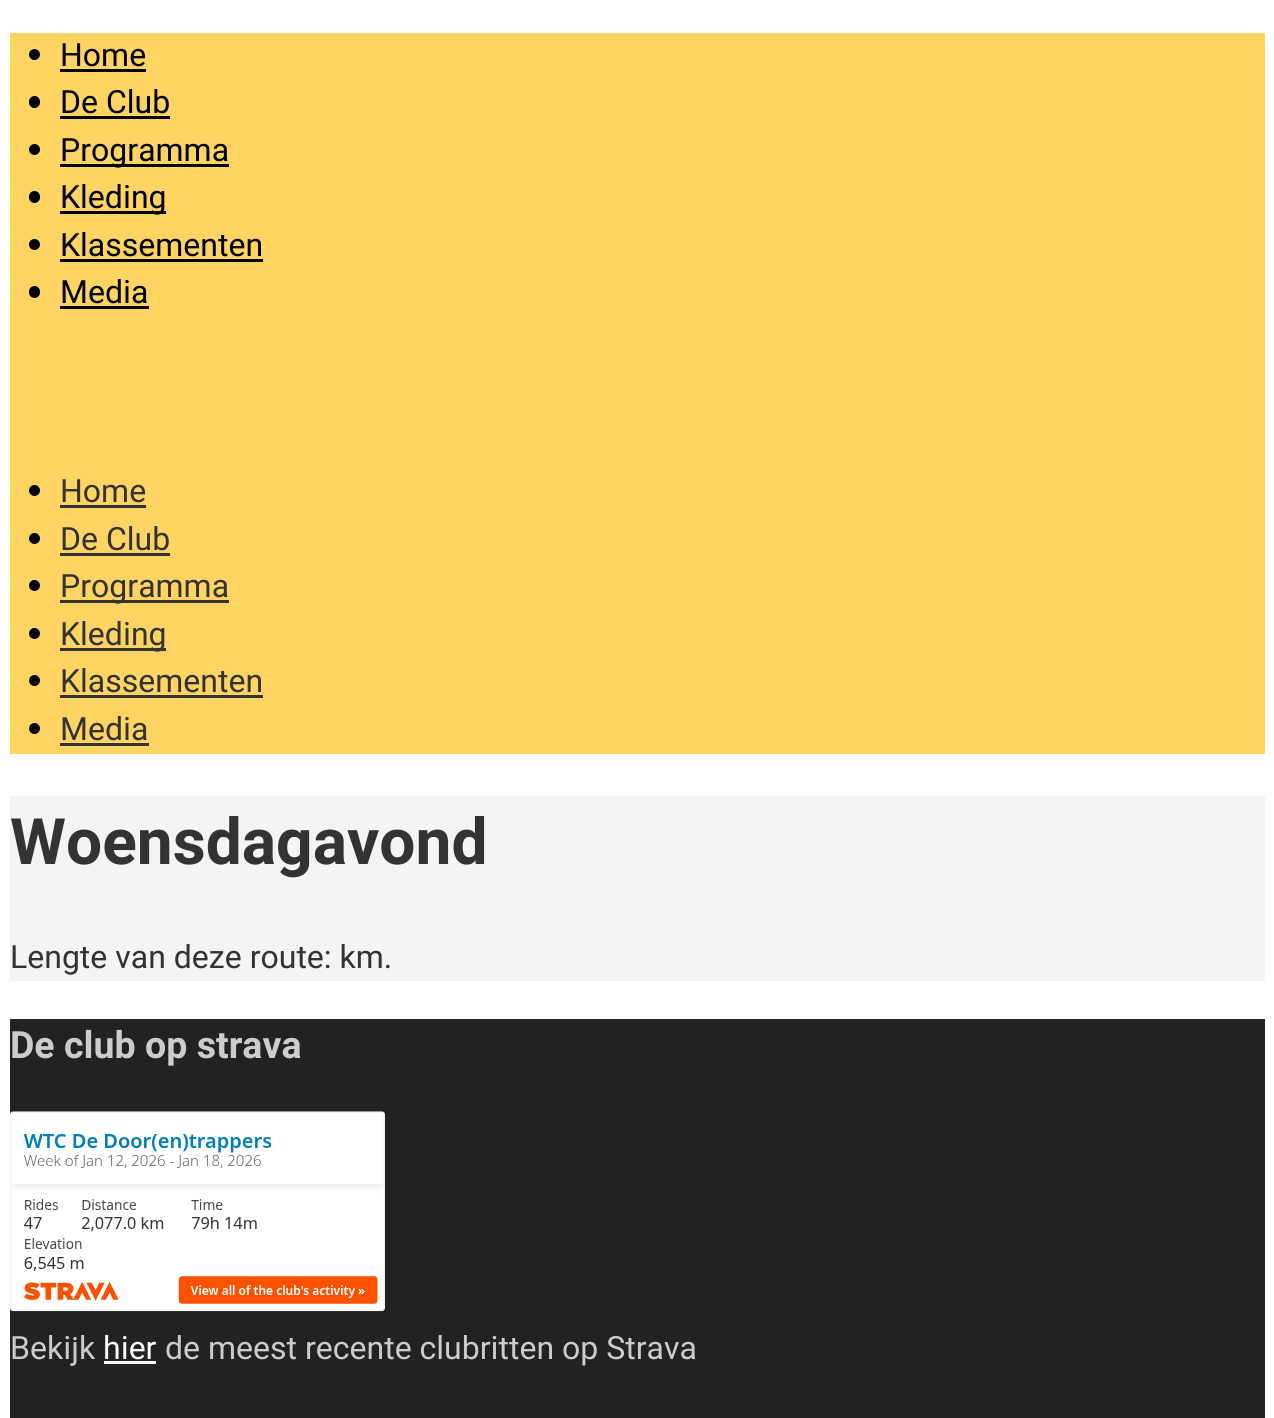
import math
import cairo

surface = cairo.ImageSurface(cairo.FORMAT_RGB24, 1274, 1418)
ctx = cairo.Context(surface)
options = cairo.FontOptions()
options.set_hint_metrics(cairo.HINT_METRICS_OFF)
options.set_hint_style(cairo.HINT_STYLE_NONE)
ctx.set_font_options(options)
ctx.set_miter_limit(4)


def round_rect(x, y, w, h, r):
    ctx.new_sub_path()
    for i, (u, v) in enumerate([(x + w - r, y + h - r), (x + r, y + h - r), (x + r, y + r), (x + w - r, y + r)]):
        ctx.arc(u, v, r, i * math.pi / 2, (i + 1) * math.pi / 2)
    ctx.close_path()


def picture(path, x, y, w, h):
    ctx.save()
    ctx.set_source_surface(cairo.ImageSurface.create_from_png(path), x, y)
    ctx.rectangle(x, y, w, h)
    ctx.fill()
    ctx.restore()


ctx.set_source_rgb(1, 1, 1)
ctx.paint()
ctx.set_source_rgb(1, 0.831, 0.388)
ctx.rectangle(10, 33, 1255, 721)
ctx.fill()
ctx.set_source_rgb(0, 0, 0)
ctx.arc(34.5, 54.5, 5.5, 0, 2 * math.pi)
ctx.fill()
ctx.select_font_face("Heebo")
ctx.set_font_size(32)
ctx.move_to(60, 66)
ctx.show_text("Home")
ctx.rectangle(60, 69, 86, 3)
ctx.fill()
round_rect(29, 96, 11, 12, 5.5)
ctx.fill()
ctx.move_to(60, 113)
ctx.show_text("De Club")
ctx.rectangle(60, 116, 110, 3)
ctx.fill()
ctx.arc(34.5, 149.5, 5.5, 0, 2 * math.pi)
ctx.fill()
ctx.rectangle(60, 164, 169, 3)
ctx.fill()
ctx.move_to(60, 161)
ctx.show_text("Programma")
round_rect(29, 191, 11, 12, 5.5)
ctx.fill()
ctx.rectangle(60, 211, 106, 3)
ctx.fill()
ctx.move_to(60, 208)
ctx.show_text("Kleding")
ctx.new_path()
ctx.arc(34.5, 244.5, 5.5, 0, 2 * math.pi)
ctx.fill()
ctx.move_to(60, 256)
ctx.show_text("Klassementen")
ctx.rectangle(60, 259, 203, 3)
ctx.fill()
round_rect(29, 286, 11, 12, 5.5)
ctx.fill()
ctx.move_to(60, 303)
ctx.show_text("Media")
ctx.rectangle(60, 306, 89, 3)
ctx.fill()
ctx.arc(34.5, 490.5, 5.5, 0, 2 * math.pi)
ctx.fill()
ctx.set_source_rgb(0.2, 0.2, 0.2)
ctx.move_to(60, 502)
ctx.show_text("Home")
ctx.rectangle(60, 505, 86, 3)
ctx.fill()
ctx.set_source_rgb(0, 0, 0)
ctx.arc(34.5, 538.5, 5.5, 0, 2 * math.pi)
ctx.fill()
ctx.set_source_rgb(0.2, 0.2, 0.2)
ctx.move_to(60, 550)
ctx.show_text("De Club")
ctx.rectangle(60, 553, 110, 3)
ctx.fill()
ctx.set_source_rgb(0, 0, 0)
ctx.arc(34.5, 585.5, 5.5, 0, 2 * math.pi)
ctx.fill()
ctx.set_source_rgb(0.2, 0.2, 0.2)
ctx.rectangle(60, 600, 169, 3)
ctx.fill()
ctx.move_to(60, 597)
ctx.show_text("Programma")
ctx.set_source_rgb(0, 0, 0)
ctx.new_path()
ctx.arc(34.5, 633.5, 5.5, 0, 2 * math.pi)
ctx.fill()
ctx.set_source_rgb(0.2, 0.2, 0.2)
ctx.rectangle(60, 648, 106, 3)
ctx.fill()
ctx.move_to(60, 645)
ctx.show_text("Kleding")
ctx.set_source_rgb(0, 0, 0)
ctx.new_path()
ctx.arc(34.5, 680.5, 5.5, 0, 2 * math.pi)
ctx.fill()
ctx.set_source_rgb(0.2, 0.2, 0.2)
ctx.move_to(60, 692)
ctx.show_text("Klassementen")
ctx.rectangle(60, 695, 203, 3)
ctx.fill()
ctx.set_source_rgb(0, 0, 0)
ctx.arc(34.5, 728.5, 5.5, 0, 2 * math.pi)
ctx.fill()
ctx.set_source_rgb(0.2, 0.2, 0.2)
ctx.move_to(60, 740)
ctx.show_text("Media")
ctx.rectangle(60, 743, 89, 3)
ctx.fill()
ctx.set_source_rgb(0.957, 0.957, 0.957)
ctx.rectangle(10, 796, 1255, 185)
ctx.fill()
ctx.select_font_face("Heebo", cairo.FONT_SLANT_NORMAL, cairo.FONT_WEIGHT_BOLD)
ctx.set_font_size(64)
ctx.set_source_rgb(0.2, 0.2, 0.2)
ctx.move_to(10, 864)
ctx.show_text("Woensdagavond")
ctx.select_font_face("Heebo")
ctx.set_font_size(32)
ctx.move_to(10, 968)
ctx.show_text("Lengte van deze route: km.")
ctx.set_source_rgb(0.133, 0.133, 0.133)
ctx.rectangle(10, 1019, 1255, 399)
ctx.fill()
ctx.select_font_face("Heebo", cairo.FONT_SLANT_NORMAL, cairo.FONT_WEIGHT_BOLD)
ctx.set_font_size(37.5)
ctx.set_source_rgb(0.8, 0.8, 0.8)
ctx.move_to(10, 1058)
ctx.show_text("De club op strava")
picture("img1.png", 10, 1111, 375, 201)
ctx.select_font_face("Heebo")
ctx.set_font_size(32)
ctx.move_to(10, 1359)
ctx.show_text("Bekijk")
ctx.set_source_rgb(1, 1, 1)
ctx.move_to(103, 1359)
ctx.show_text("hier")
ctx.rectangle(104, 1361, 52, 3)
ctx.fill()
ctx.set_source_rgb(0.8, 0.8, 0.8)
ctx.move_to(165, 1359)
ctx.show_text("de meest recente clubritten op Strava")
surface.write_to_png("page.png")
